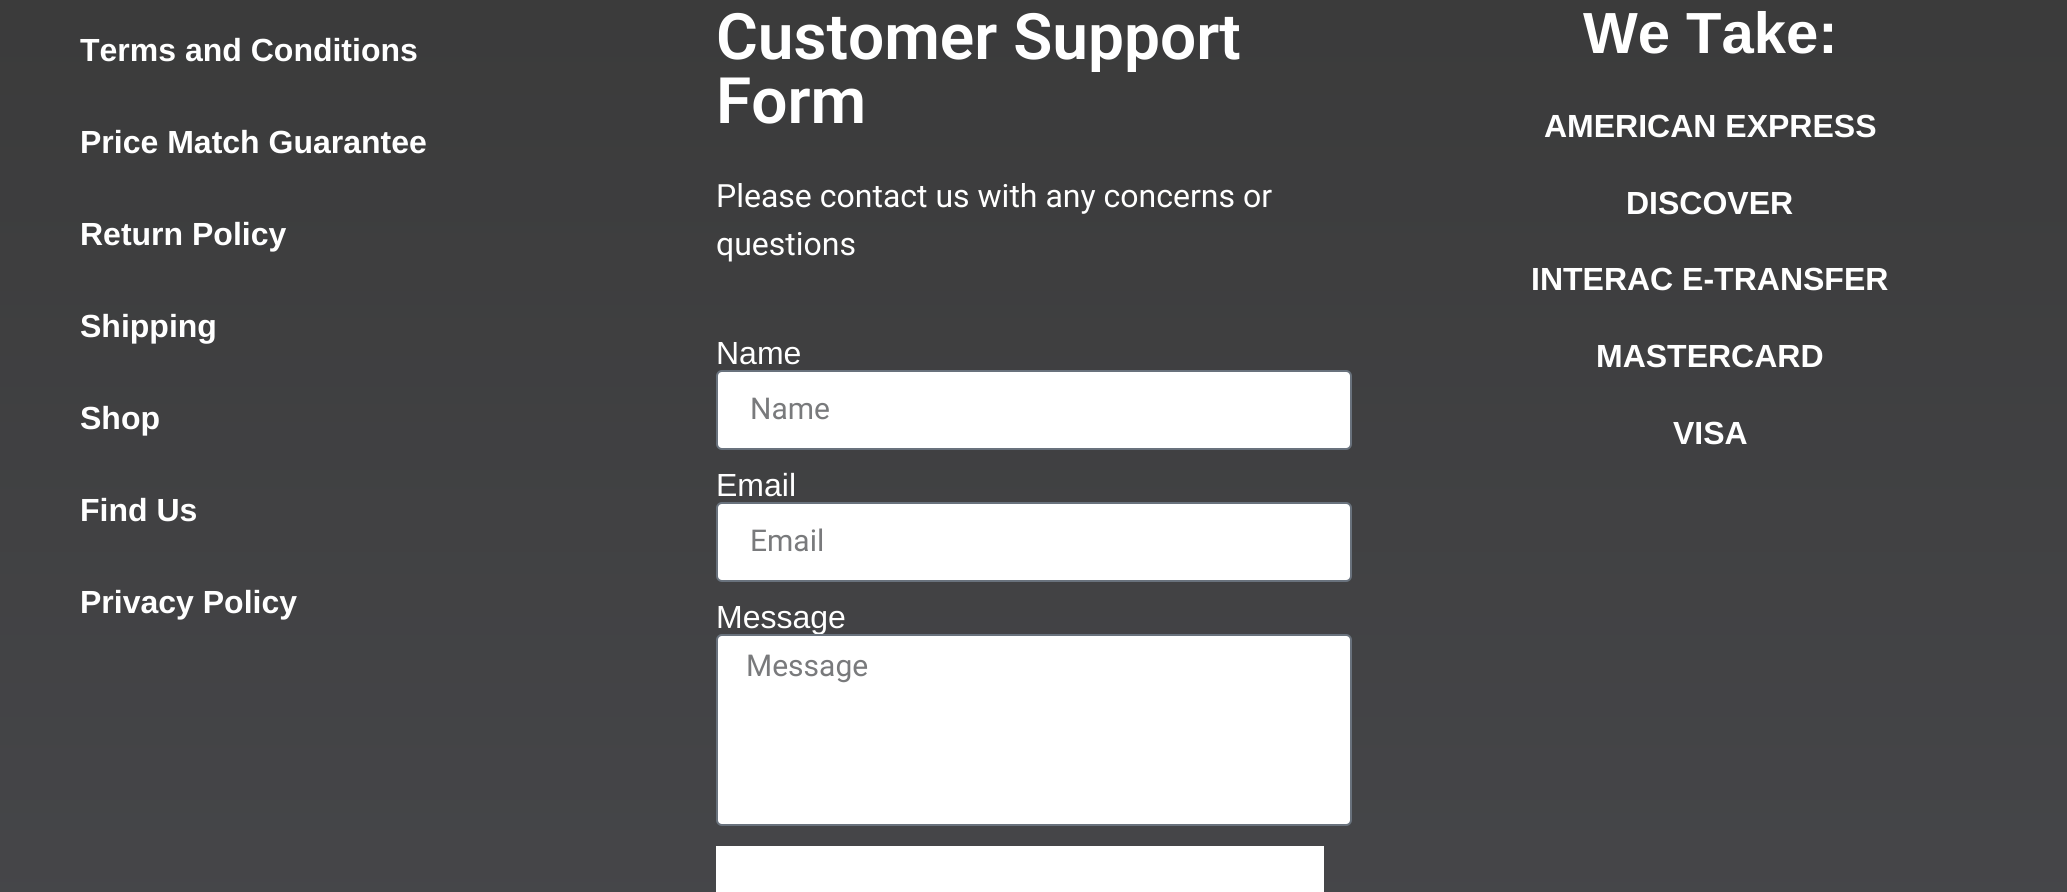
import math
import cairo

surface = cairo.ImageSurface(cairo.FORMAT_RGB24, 2067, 892)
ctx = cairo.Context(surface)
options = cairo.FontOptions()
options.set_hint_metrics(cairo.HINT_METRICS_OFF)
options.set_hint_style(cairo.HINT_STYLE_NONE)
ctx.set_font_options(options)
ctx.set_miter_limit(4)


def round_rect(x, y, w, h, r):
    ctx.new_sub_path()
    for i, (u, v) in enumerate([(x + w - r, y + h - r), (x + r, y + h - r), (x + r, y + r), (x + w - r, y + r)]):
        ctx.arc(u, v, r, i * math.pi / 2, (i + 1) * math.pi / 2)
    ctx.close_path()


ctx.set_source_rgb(1, 1, 1)
ctx.paint()
gradient = cairo.LinearGradient(1034, 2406, 1034, -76)
gradient.add_color_stop_rgba(0, 0.341, 0.345, 0.376, 1)
gradient.add_color_stop_rgba(1, 0.227, 0.227, 0.227, 1)
ctx.set_source(gradient)
ctx.rectangle(0, 0, 2067, 892)
ctx.fill()
ctx.select_font_face("Liberation Sans", cairo.FONT_SLANT_NORMAL, cairo.FONT_WEIGHT_BOLD)
ctx.set_font_size(32)
ctx.set_source_rgb(1, 1, 1)
ctx.move_to(80, 61)
ctx.show_text("Terms and Conditions")
ctx.move_to(80, 153)
ctx.show_text("Price Match Guarantee")
ctx.move_to(80, 245)
ctx.show_text("Return Policy")
ctx.move_to(80, 337)
ctx.show_text("Shipping")
ctx.move_to(80, 429)
ctx.show_text("Shop")
ctx.move_to(80, 521)
ctx.show_text("Find Us")
ctx.move_to(80, 613)
ctx.show_text("Privacy Policy")
ctx.select_font_face("Roboto SemiBold")
ctx.set_font_size(64)
ctx.move_to(716, 59)
ctx.show_text("Customer Support")
ctx.move_to(716, 123)
ctx.show_text("Form")
ctx.select_font_face("Roboto")
ctx.set_font_size(32)
ctx.move_to(716, 207)
ctx.show_text("Please contact us with any concerns or")
ctx.move_to(716, 255)
ctx.show_text("questions")
ctx.select_font_face("Liberation Sans")
ctx.move_to(716, 364)
ctx.show_text("Name")
round_rect(717, 371, 634, 78, 5)
ctx.fill_preserve()
ctx.set_source_rgb(0.412, 0.447, 0.49)
ctx.stroke()
ctx.select_font_face("Roboto")
ctx.set_font_size(30)
ctx.set_source_rgb(0.475, 0.478, 0.486)
ctx.move_to(750, 419)
ctx.show_text("Name")
ctx.select_font_face("Liberation Sans")
ctx.set_font_size(32)
ctx.set_source_rgb(1, 1, 1)
ctx.move_to(716, 496)
ctx.show_text("Email")
round_rect(717, 503, 634, 78, 5)
ctx.fill_preserve()
ctx.set_source_rgb(0.412, 0.447, 0.49)
ctx.stroke()
ctx.select_font_face("Roboto")
ctx.set_font_size(30)
ctx.set_source_rgb(0.475, 0.478, 0.486)
ctx.move_to(750, 551)
ctx.show_text("Email")
ctx.select_font_face("Liberation Sans")
ctx.set_font_size(32)
ctx.set_source_rgb(1, 1, 1)
ctx.move_to(716, 628)
ctx.show_text("Message")
round_rect(717, 635, 634, 190, 5)
ctx.fill_preserve()
ctx.set_source_rgb(0.412, 0.447, 0.49)
ctx.stroke()
ctx.select_font_face("Roboto")
ctx.set_font_size(30)
ctx.set_source_rgb(0.475, 0.478, 0.486)
ctx.move_to(746, 676)
ctx.show_text("Message")
ctx.set_source_rgb(1, 1, 1)
ctx.rectangle(716, 846, 608, 46)
ctx.fill()
ctx.select_font_face("Liberation Sans", cairo.FONT_SLANT_NORMAL, cairo.FONT_WEIGHT_BOLD)
ctx.set_font_size(58)
ctx.move_to(1583, 53)
ctx.show_text("We Take:")
ctx.set_font_size(32)
ctx.move_to(1544, 137)
ctx.show_text("AMERICAN EXPRESS")
ctx.move_to(1626, 214)
ctx.show_text("DISCOVER")
ctx.move_to(1531, 290)
ctx.show_text("INTERAC E-TRANSFER")
ctx.move_to(1596, 367)
ctx.show_text("MASTERCARD")
ctx.move_to(1673, 444)
ctx.show_text("VISA")
surface.write_to_png("page.png")
